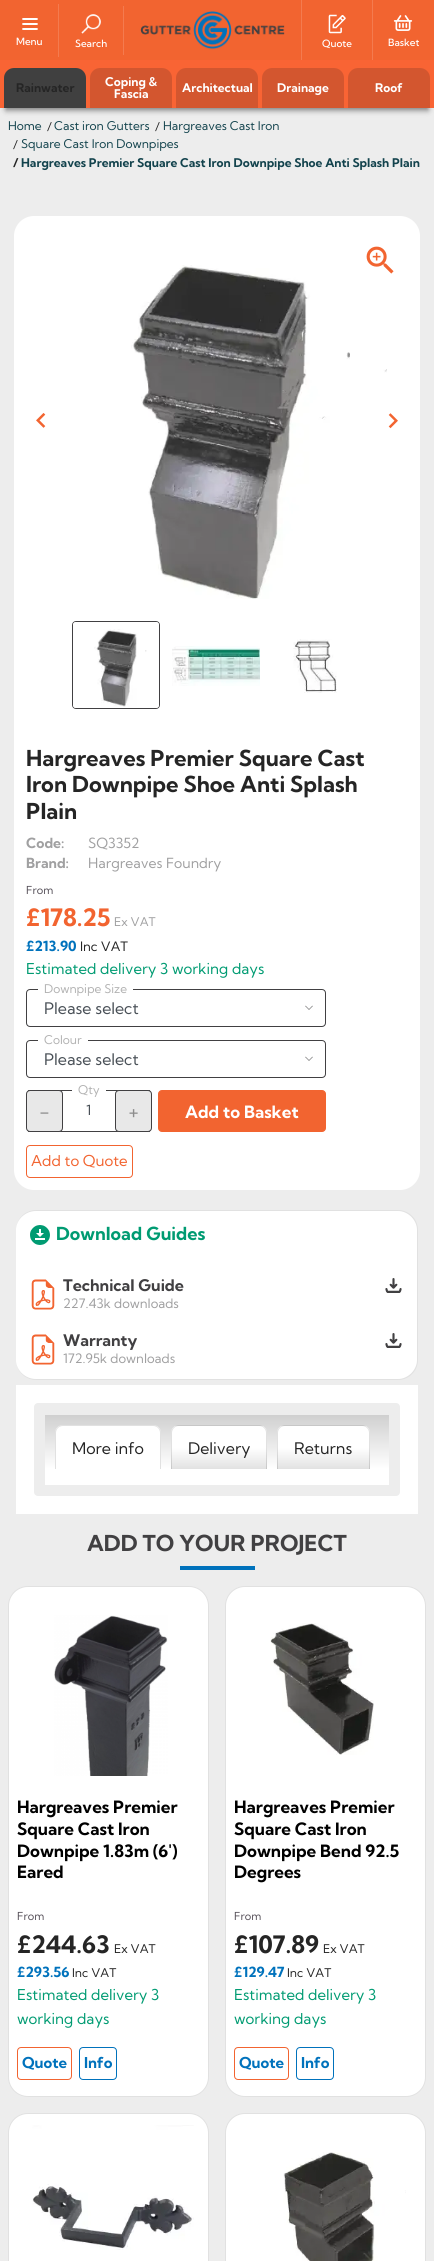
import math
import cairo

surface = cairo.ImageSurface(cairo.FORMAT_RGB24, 434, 2261)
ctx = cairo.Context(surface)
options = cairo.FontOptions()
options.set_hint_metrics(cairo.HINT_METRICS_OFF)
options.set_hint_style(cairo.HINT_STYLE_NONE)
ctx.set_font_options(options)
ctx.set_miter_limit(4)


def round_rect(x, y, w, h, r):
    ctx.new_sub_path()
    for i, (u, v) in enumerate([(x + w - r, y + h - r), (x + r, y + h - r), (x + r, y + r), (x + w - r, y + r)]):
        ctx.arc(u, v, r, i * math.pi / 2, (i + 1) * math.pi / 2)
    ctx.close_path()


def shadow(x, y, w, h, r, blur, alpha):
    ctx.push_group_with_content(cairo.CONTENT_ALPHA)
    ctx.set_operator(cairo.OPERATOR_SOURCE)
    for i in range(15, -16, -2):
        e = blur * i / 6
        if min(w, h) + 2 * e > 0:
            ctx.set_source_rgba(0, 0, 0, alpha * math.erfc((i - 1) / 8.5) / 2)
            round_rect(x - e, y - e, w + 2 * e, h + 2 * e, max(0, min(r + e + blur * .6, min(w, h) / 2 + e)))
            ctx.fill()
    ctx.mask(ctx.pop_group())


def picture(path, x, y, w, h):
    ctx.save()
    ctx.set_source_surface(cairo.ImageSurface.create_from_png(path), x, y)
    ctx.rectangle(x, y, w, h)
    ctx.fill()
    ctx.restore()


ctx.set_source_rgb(0.929, 0.929, 0.929)
ctx.paint()
ctx.set_source_rgb(0, 0, 0)
shadow(6, 14, 422, 96, 0, 3, 0.5)
ctx.set_source_rgb(0.973, 0.392, 0.204)
ctx.rectangle(0, 60, 434, 48)
ctx.fill()
ctx.set_source_rgb(0.949, 0.392, 0.188)
ctx.rectangle(0, 0, 434, 60)
ctx.fill()
ctx.set_source_rgb(0.957, 0.482, 0.31)
ctx.rectangle(58, 4, 1, 53)
ctx.fill()
picture("img1.png", 22, 18, 16, 12)
ctx.select_font_face("Kumbh Sans Medium")
ctx.set_font_size(10)
ctx.set_source_rgb(1, 1, 1)
ctx.move_to(16, 45)
ctx.show_text("Menu")
ctx.set_source_rgb(0.957, 0.482, 0.31)
ctx.rectangle(123, 6, 1, 49)
ctx.fill()
picture("img2.png", 81, 14, 20, 20)
ctx.set_source_rgb(1, 1, 1)
ctx.move_to(75, 47)
ctx.show_text("Search")
ctx.set_source_rgb(0.957, 0.482, 0.31)
ctx.rectangle(301, 0, 1, 60)
ctx.fill()
picture("img3.png", 140, 11, 145, 39)
ctx.rectangle(372, 0, 1, 60)
ctx.fill()
picture("img4.png", 328, 14, 18, 20)
ctx.set_source_rgb(1, 1, 1)
ctx.move_to(322, 47)
ctx.show_text("Quote")
picture("img5.png", 393, 15, 20, 16)
ctx.move_to(388, 46)
ctx.show_text("Basket")
ctx.set_source_rgb(0.251, 0.251, 0.251)
ctx.new_path()
ctx.move_to(14, 68)
ctx.line_to(76, 68)
ctx.curve_to(81.5, 68, 86, 72.5, 86, 78)
ctx.line_to(86, 108)
ctx.line_to(4, 108)
ctx.line_to(4, 78)
ctx.curve_to(4, 72.5, 8.5, 68, 14, 68)
ctx.close_path()
ctx.fill()
ctx.select_font_face("Kumbh Sans", cairo.FONT_SLANT_NORMAL, cairo.FONT_WEIGHT_BOLD)
ctx.set_font_size(12)
ctx.set_source_rgb(0.145, 0.145, 0.145)
ctx.move_to(16, 92)
ctx.show_text("Rainwater")
ctx.set_source_rgb(0.827, 0.337, 0.184)
ctx.new_path()
ctx.move_to(100, 68)
ctx.line_to(162, 68)
ctx.curve_to(167.5, 68, 172, 72.5, 172, 78)
ctx.line_to(172, 108)
ctx.line_to(90, 108)
ctx.line_to(90, 78)
ctx.curve_to(90, 72.5, 94.5, 68, 100, 68)
ctx.close_path()
ctx.fill()
ctx.set_source_rgb(1, 1, 1)
ctx.move_to(105, 86)
ctx.show_text("Coping &")
ctx.move_to(114, 98)
ctx.show_text("Fascia")
ctx.set_source_rgb(0.827, 0.337, 0.184)
ctx.new_path()
ctx.move_to(186, 68)
ctx.line_to(248, 68)
ctx.curve_to(253.5, 68, 258, 72.5, 258, 78)
ctx.line_to(258, 108)
ctx.line_to(176, 108)
ctx.line_to(176, 78)
ctx.curve_to(176, 72.5, 180.5, 68, 186, 68)
ctx.close_path()
ctx.fill()
ctx.set_source_rgb(1, 1, 1)
ctx.move_to(182, 92)
ctx.show_text("Architectual")
ctx.set_source_rgb(0.827, 0.337, 0.184)
ctx.new_path()
ctx.move_to(272, 68)
ctx.line_to(334, 68)
ctx.curve_to(339.5, 68, 344, 72.5, 344, 78)
ctx.line_to(344, 108)
ctx.line_to(262, 108)
ctx.line_to(262, 78)
ctx.curve_to(262, 72.5, 266.5, 68, 272, 68)
ctx.close_path()
ctx.fill()
ctx.set_source_rgb(1, 1, 1)
ctx.move_to(277, 92)
ctx.show_text("Drainage")
ctx.set_source_rgb(0.827, 0.337, 0.184)
ctx.new_path()
ctx.move_to(358, 68)
ctx.line_to(420, 68)
ctx.curve_to(425.5, 68, 430, 72.5, 430, 78)
ctx.line_to(430, 108)
ctx.line_to(348, 108)
ctx.line_to(348, 78)
ctx.curve_to(348, 72.5, 352.5, 68, 358, 68)
ctx.close_path()
ctx.fill()
ctx.set_source_rgb(1, 1, 1)
ctx.move_to(375, 92)
ctx.show_text("Roof")
ctx.select_font_face("Kumbh Sans")
ctx.set_source_rgb(0.075, 0.263, 0.302)
ctx.move_to(8, 130)
ctx.show_text("Home")
ctx.set_source_rgb(0.145, 0.145, 0.145)
ctx.move_to(47, 131)
ctx.show_text("/")
ctx.set_source_rgb(0.075, 0.263, 0.302)
ctx.move_to(54, 130)
ctx.show_text("Cast iron Gutters")
ctx.set_source_rgb(0.145, 0.145, 0.145)
ctx.move_to(155, 131)
ctx.show_text("/")
ctx.set_source_rgb(0.075, 0.263, 0.302)
ctx.move_to(163, 130)
ctx.show_text("Hargreaves Cast Iron")
ctx.set_source_rgb(0.145, 0.145, 0.145)
ctx.move_to(13, 149)
ctx.show_text("/")
ctx.set_source_rgb(0.075, 0.263, 0.302)
ctx.move_to(21, 148)
ctx.show_text("Square Cast Iron Downpipes")
ctx.select_font_face("Kumbh Sans", cairo.FONT_SLANT_NORMAL, cairo.FONT_WEIGHT_BOLD)
ctx.set_source_rgb(0.145, 0.145, 0.145)
ctx.move_to(13, 167)
ctx.show_text("/")
ctx.set_source_rgb(0.075, 0.263, 0.302)
ctx.move_to(21, 167)
ctx.show_text("Hargreaves Premier Square Cast Iron Downpipe Shoe Anti Splash Plain")
ctx.set_source_rgb(1, 1, 1)
ctx.new_path()
ctx.move_to(34, 216)
ctx.line_to(400, 216)
ctx.curve_to(411, 216, 420, 225, 420, 236)
ctx.line_to(420, 733)
ctx.line_to(14, 733)
ctx.line_to(14, 236)
ctx.curve_to(14, 225, 23, 216, 34, 216)
ctx.close_path()
ctx.fill()
picture("img7.png", 131, 265, 256, 334)
picture("img6.png", 366, 246, 28, 28)
picture("img8.png", 36, 413, 10, 15)
picture("img9.png", 388, 413, 10, 16)
round_rect(72.5, 621.5, 87, 87, 3.5)
ctx.set_source_rgb(0.255, 0.251, 0.259)
ctx.set_line_width(1)
ctx.stroke()
picture("img10.png", 73, 622, 86, 86)
picture("img11.png", 172, 646, 88, 40)
picture("img12.png", 293, 639, 44, 54)
ctx.set_source_rgb(1, 1, 1)
ctx.new_path()
ctx.move_to(14, 733)
ctx.line_to(420, 733)
ctx.line_to(420, 1170)
ctx.curve_to(420, 1181, 411, 1190, 400, 1190)
ctx.line_to(34, 1190)
ctx.curve_to(23, 1190, 14, 1181, 14, 1170)
ctx.close_path()
ctx.fill()
ctx.set_font_size(22)
ctx.set_source_rgb(0.145, 0.145, 0.145)
ctx.move_to(26, 766)
ctx.show_text("Hargreaves Premier Square Cast")
ctx.move_to(26, 792)
ctx.show_text("Iron Downpipe Shoe Anti Splash")
ctx.move_to(26, 819)
ctx.show_text("Plain")
ctx.set_font_size(14)
ctx.set_source_rgb(0.627, 0.627, 0.631)
ctx.move_to(26, 848)
ctx.show_text("Code:")
ctx.select_font_face("Kumbh Sans")
ctx.move_to(88, 848)
ctx.show_text("SQ3352")
ctx.select_font_face("Kumbh Sans", cairo.FONT_SLANT_NORMAL, cairo.FONT_WEIGHT_BOLD)
ctx.move_to(26, 868)
ctx.show_text("Brand:")
ctx.select_font_face("Kumbh Sans")
ctx.move_to(88, 868)
ctx.show_text("Hargreaves Foundry")
ctx.set_font_size(11)
ctx.set_source_rgb(0.333, 0.31, 0.345)
ctx.move_to(26, 894)
ctx.show_text("From")
ctx.select_font_face("Kumbh Sans", cairo.FONT_SLANT_NORMAL, cairo.FONT_WEIGHT_BOLD)
ctx.set_font_size(24)
ctx.set_source_rgb(0.949, 0.392, 0.188)
ctx.move_to(26, 926)
ctx.show_text("£178.25")
ctx.select_font_face("Kumbh Sans")
ctx.set_font_size(12)
ctx.set_source_rgb(0.627, 0.627, 0.631)
ctx.move_to(114, 926)
ctx.show_text("Ex VAT")
ctx.select_font_face("Kumbh Sans", cairo.FONT_SLANT_NORMAL, cairo.FONT_WEIGHT_BOLD)
ctx.set_font_size(14)
ctx.set_source_rgb(0, 0.447, 0.737)
ctx.move_to(26, 951)
ctx.show_text("£213.90")
ctx.select_font_face("Kumbh Sans")
ctx.set_font_size(13)
ctx.set_source_rgb(0.145, 0.145, 0.145)
ctx.move_to(80, 951)
ctx.show_text("Inc VAT")
ctx.set_font_size(15)
ctx.set_source_rgb(0, 0.608, 0.447)
ctx.move_to(26, 974)
ctx.show_text("Estimated delivery 3 working days")
ctx.new_path()
ctx.move_to(312.5, 1006)
ctx.line_to(309, 1009.5)
ctx.line_to(305.5, 1006)
ctx.set_source_rgb(0.255, 0.251, 0.259)
ctx.set_line_width(0.5)
ctx.set_line_cap(cairo.LINE_CAP_ROUND)
ctx.stroke()
round_rect(26.5, 989.5, 299, 37, 3.5)
ctx.set_line_width(1)
ctx.set_line_cap(cairo.LINE_CAP_BUTT)
ctx.stroke()
ctx.set_source_rgb(1, 1, 1)
ctx.rectangle(38, 989, 95, 1)
ctx.fill()
ctx.set_font_size(12)
ctx.set_source_rgb(0.698, 0.698, 0.698)
ctx.move_to(44, 993)
ctx.show_text("Downpipe Size")
ctx.set_font_size(16)
ctx.set_source_rgb(0.286, 0.314, 0.341)
ctx.move_to(44, 1014)
ctx.show_text("Please select")
ctx.new_path()
ctx.move_to(312.5, 1057)
ctx.line_to(309, 1060.5)
ctx.line_to(305.5, 1057)
ctx.set_source_rgb(0.255, 0.251, 0.259)
ctx.set_line_width(0.5)
ctx.set_line_cap(cairo.LINE_CAP_ROUND)
ctx.stroke()
round_rect(26.5, 1040.5, 299, 37, 3.5)
ctx.set_line_width(1)
ctx.set_line_cap(cairo.LINE_CAP_BUTT)
ctx.stroke()
ctx.set_source_rgb(1, 1, 1)
ctx.rectangle(38, 1040, 50, 1)
ctx.fill()
ctx.set_font_size(12)
ctx.set_source_rgb(0.698, 0.698, 0.698)
ctx.move_to(44, 1044)
ctx.show_text("Colour")
ctx.set_font_size(16)
ctx.set_source_rgb(0.286, 0.314, 0.341)
ctx.move_to(44, 1065)
ctx.show_text("Please select")
ctx.set_source_rgb(0.255, 0.251, 0.259)
ctx.rectangle(28, 1090, 122, 1)
ctx.fill()
ctx.set_source_rgb(1, 1, 1)
ctx.rectangle(72, 1090, 34, 1)
ctx.fill()
ctx.set_font_size(12)
ctx.set_source_rgb(0.698, 0.698, 0.698)
ctx.move_to(78, 1094)
ctx.show_text("Qty")
ctx.set_source_rgb(0.255, 0.251, 0.259)
ctx.rectangle(28, 1131, 122, 1)
ctx.fill()
ctx.set_source_rgb(0.91, 0.91, 0.91)
round_rect(26.5, 1090.5, 36, 41, 3.5)
ctx.fill_preserve()
ctx.set_source_rgb(0.255, 0.251, 0.259)
ctx.stroke()
ctx.set_font_size(20)
ctx.set_source_rgb(0.549, 0.549, 0.549)
ctx.move_to(39, 1118)
ctx.show_text("-")
ctx.set_font_size(14)
ctx.set_source_rgb(0.286, 0.314, 0.341)
ctx.move_to(86, 1115)
ctx.show_text("1")
ctx.set_source_rgb(0.91, 0.91, 0.91)
round_rect(115.5, 1090.5, 36, 41, 3.5)
ctx.fill_preserve()
ctx.set_source_rgb(0.255, 0.251, 0.259)
ctx.stroke()
ctx.set_font_size(20)
ctx.set_source_rgb(0.549, 0.549, 0.549)
ctx.move_to(128, 1118)
ctx.show_text("+")
ctx.set_source_rgb(0.949, 0.392, 0.188)
round_rect(158.5, 1090.5, 167, 41, 3.5)
ctx.fill_preserve()
ctx.stroke()
ctx.select_font_face("Kumbh Sans", cairo.FONT_SLANT_NORMAL, cairo.FONT_WEIGHT_BOLD)
ctx.set_font_size(17)
ctx.set_source_rgb(1, 1, 1)
ctx.move_to(185, 1118)
ctx.show_text("Add to Basket")
round_rect(26.5, 1145.5, 106, 32, 3.5)
ctx.set_source_rgb(0.949, 0.392, 0.188)
ctx.stroke()
ctx.select_font_face("Kumbh Sans")
ctx.set_font_size(15)
ctx.move_to(31, 1166)
ctx.show_text("Add to Quote")
ctx.set_source_rgb(1, 1, 1)
round_rect(16, 1210, 402, 170, 20)
ctx.fill()
ctx.set_source_rgba(0, 0, 0, 0.12)
ctx.set_fill_rule(cairo.FILL_RULE_EVEN_ODD)
ctx.new_path()
ctx.move_to(36, 1210)
ctx.line_to(398, 1210)
ctx.curve_to(409, 1210, 418, 1219, 418, 1230)
ctx.line_to(418, 1360)
ctx.curve_to(418, 1371, 409, 1380, 398, 1380)
ctx.line_to(36, 1380)
ctx.curve_to(25, 1380, 16, 1371, 16, 1360)
ctx.line_to(16, 1230)
ctx.curve_to(16, 1219, 25, 1210, 36, 1210)
ctx.close_path()
ctx.move_to(36, 1211)
ctx.line_to(398, 1211)
ctx.curve_to(408, 1211, 417, 1220, 417, 1230)
ctx.line_to(417, 1360)
ctx.curve_to(417, 1370, 408, 1379, 398, 1379)
ctx.line_to(36, 1379)
ctx.curve_to(25, 1379, 16, 1370, 16, 1360)
ctx.line_to(16, 1230)
ctx.curve_to(16, 1220, 25, 1211, 36, 1211)
ctx.close_path()
ctx.fill()
picture("img13.png", 30, 1225, 20, 20)
ctx.select_font_face("Kumbh Sans", cairo.FONT_SLANT_NORMAL, cairo.FONT_WEIGHT_BOLD)
ctx.set_font_size(18)
ctx.set_source_rgb(0, 0.608, 0.447)
ctx.move_to(56, 1240)
ctx.show_text("Download Guides")
picture("img14.png", 31, 1279, 24, 31)
ctx.set_font_size(16)
ctx.set_source_rgb(0.255, 0.251, 0.259)
ctx.move_to(63, 1291)
ctx.show_text("Technical Guide")
ctx.select_font_face("Kumbh Sans")
ctx.set_font_size(13)
ctx.set_source_rgb(0.627, 0.627, 0.631)
ctx.move_to(63, 1308)
ctx.show_text("227.43k downloads")
picture("img15.png", 385, 1278, 17, 15)
picture("img14.png", 31, 1334, 24, 31)
ctx.select_font_face("Kumbh Sans", cairo.FONT_SLANT_NORMAL, cairo.FONT_WEIGHT_BOLD)
ctx.set_font_size(16)
ctx.set_source_rgb(0.255, 0.251, 0.259)
ctx.move_to(63, 1346)
ctx.show_text("Warranty")
ctx.select_font_face("Kumbh Sans")
ctx.set_font_size(13)
ctx.set_source_rgb(0.627, 0.627, 0.631)
ctx.move_to(63, 1363)
ctx.show_text("172.95k downloads")
picture("img15.png", 385, 1333, 17, 15)
ctx.set_source_rgb(1, 1, 1)
ctx.rectangle(16, 1385, 402, 129)
ctx.fill()
ctx.set_source_rgb(0.929, 0.929, 0.929)
round_rect(34, 1403, 366, 93, 4)
ctx.fill()
gradient = cairo.LinearGradient(217, 1469, 217, 1399)
gradient.add_color_stop_rgba(0, 1, 1, 1, 1)
gradient.add_color_stop_rgba(1, 0.761, 0.761, 0.761, 1)
ctx.set_source(gradient)
ctx.rectangle(45, 1415, 344, 54)
ctx.fill()
ctx.set_source_rgb(1, 1, 1)
ctx.new_path()
ctx.move_to(63, 1425)
ctx.line_to(153, 1425)
ctx.curve_to(157.5, 1425, 161, 1428.5, 161, 1433)
ctx.line_to(161, 1469)
ctx.line_to(55, 1469)
ctx.line_to(55, 1433)
ctx.curve_to(55, 1428.5, 58.5, 1425, 63, 1425)
ctx.close_path()
ctx.fill()
ctx.save()
ctx.set_fill_rule(cairo.FILL_RULE_WINDING)
ctx.rectangle(45, 1415, 344, 54)
ctx.clip()
ctx.set_source_rgba(0, 0, 0, 0.12)
ctx.set_fill_rule(cairo.FILL_RULE_EVEN_ODD)
ctx.new_path()
ctx.move_to(63, 1425)
ctx.line_to(153, 1425)
ctx.curve_to(157, 1425, 161, 1429, 161, 1433)
ctx.line_to(161, 1471)
ctx.line_to(55, 1471)
ctx.line_to(55, 1433)
ctx.curve_to(55, 1429, 59, 1425, 63, 1425)
ctx.close_path()
ctx.move_to(63, 1426)
ctx.line_to(153, 1426)
ctx.curve_to(157, 1426, 160, 1429, 160, 1433)
ctx.line_to(160, 1471)
ctx.line_to(56, 1471)
ctx.line_to(56, 1433)
ctx.curve_to(56, 1429, 59, 1426, 63, 1426)
ctx.close_path()
ctx.fill()
ctx.restore()
ctx.set_font_size(16)
ctx.set_source_rgb(0.145, 0.145, 0.145)
ctx.move_to(72, 1454)
ctx.show_text("More info")
ctx.save()
ctx.set_fill_rule(cairo.FILL_RULE_WINDING)
ctx.new_path()
ctx.move_to(179, 1425)
ctx.line_to(259, 1425)
ctx.curve_to(263.5, 1425, 267, 1428.5, 267, 1433)
ctx.line_to(267, 1470)
ctx.line_to(171, 1470)
ctx.line_to(171, 1433)
ctx.curve_to(171, 1428.5, 174.5, 1425, 179, 1425)
ctx.close_path()
ctx.clip()
gradient = cairo.LinearGradient(219, 1382, 219, 1448)
gradient.add_color_stop_rgba(0.33, 1, 1, 1, 1)
gradient.add_color_stop_rgba(1, 0.761, 0.761, 0.761, 1)
ctx.set_source(gradient)
ctx.rectangle(171, 1425, 96, 1)
ctx.fill()
gradient = cairo.LinearGradient(219, 1426, 219, 1492)
gradient.add_color_stop_rgba(0.33, 1, 1, 1, 1)
gradient.add_color_stop_rgba(1, 0.761, 0.761, 0.761, 1)
ctx.set_source(gradient)
ctx.rectangle(171, 1426, 96, 43)
ctx.fill()
ctx.restore()
ctx.set_source_rgba(0, 0, 0, 0.12)
ctx.new_path()
ctx.move_to(179, 1425)
ctx.line_to(259, 1425)
ctx.curve_to(263, 1425, 267, 1429, 267, 1433)
ctx.line_to(267, 1470)
ctx.line_to(171, 1470)
ctx.line_to(171, 1433)
ctx.curve_to(171, 1429, 175, 1425, 179, 1425)
ctx.close_path()
ctx.move_to(179, 1426)
ctx.line_to(259, 1426)
ctx.curve_to(263, 1426, 266, 1429, 266, 1433)
ctx.line_to(266, 1470)
ctx.line_to(172, 1470)
ctx.line_to(172, 1433)
ctx.curve_to(172, 1429, 175, 1426, 179, 1426)
ctx.close_path()
ctx.fill()
ctx.set_source_rgb(0.145, 0.145, 0.145)
ctx.move_to(188, 1454)
ctx.show_text("Delivery")
ctx.save()
ctx.set_fill_rule(cairo.FILL_RULE_WINDING)
ctx.new_path()
ctx.move_to(285, 1425)
ctx.line_to(362, 1425)
ctx.curve_to(366.5, 1425, 370, 1428.5, 370, 1433)
ctx.line_to(370, 1470)
ctx.line_to(277, 1470)
ctx.line_to(277, 1433)
ctx.curve_to(277, 1428.5, 280.5, 1425, 285, 1425)
ctx.close_path()
ctx.clip()
gradient = cairo.LinearGradient(324, 1382, 324, 1448)
gradient.add_color_stop_rgba(0.33, 1, 1, 1, 1)
gradient.add_color_stop_rgba(1, 0.761, 0.761, 0.761, 1)
ctx.set_source(gradient)
ctx.rectangle(277, 1425, 93, 1)
ctx.fill()
gradient = cairo.LinearGradient(324, 1426, 324, 1492)
gradient.add_color_stop_rgba(0.33, 1, 1, 1, 1)
gradient.add_color_stop_rgba(1, 0.761, 0.761, 0.761, 1)
ctx.set_source(gradient)
ctx.rectangle(277, 1426, 93, 43)
ctx.fill()
ctx.restore()
ctx.set_source_rgba(0, 0, 0, 0.12)
ctx.new_path()
ctx.move_to(285, 1425)
ctx.line_to(362, 1425)
ctx.curve_to(366, 1425, 370, 1429, 370, 1433)
ctx.line_to(370, 1470)
ctx.line_to(277, 1470)
ctx.line_to(277, 1433)
ctx.curve_to(277, 1429, 281, 1425, 285, 1425)
ctx.close_path()
ctx.move_to(285, 1426)
ctx.line_to(362, 1426)
ctx.curve_to(366, 1426, 369, 1429, 369, 1433)
ctx.line_to(369, 1470)
ctx.line_to(278, 1470)
ctx.line_to(278, 1433)
ctx.curve_to(278, 1429, 281, 1426, 285, 1426)
ctx.close_path()
ctx.fill()
ctx.set_source_rgb(0.145, 0.145, 0.145)
ctx.move_to(294, 1454)
ctx.show_text("Returns")
ctx.set_source_rgb(1, 1, 1)
ctx.rectangle(45, 1469, 344, 16)
ctx.fill()
ctx.select_font_face("Kumbh Sans", cairo.FONT_SLANT_NORMAL, cairo.FONT_WEIGHT_BOLD)
ctx.set_font_size(22)
ctx.set_source_rgb(0.255, 0.251, 0.259)
ctx.move_to(87, 1551)
ctx.show_text("ADD TO YOUR PROJECT")
ctx.set_source_rgb(0, 0.447, 0.737)
ctx.rectangle(180, 1566, 75, 4)
ctx.fill()
ctx.set_source_rgb(1, 1, 1)
round_rect(8, 1586, 201, 511, 20)
ctx.fill()
round_rect(8.5, 1586.5, 200, 510, 19.5)
ctx.set_source_rgba(0, 0, 0, 0.12)
ctx.stroke()
picture("img16.png", 54, 1615, 114, 161)
ctx.set_font_size(17)
ctx.set_source_rgb(0, 0, 0)
ctx.move_to(17, 1813)
ctx.show_text("Hargreaves Premier")
ctx.move_to(17, 1835)
ctx.show_text("Square Cast Iron")
ctx.move_to(17, 1857)
ctx.show_text("Downpipe 1.83m (6')")
ctx.move_to(17, 1878)
ctx.show_text("Eared")
ctx.select_font_face("Kumbh Sans")
ctx.set_font_size(11)
ctx.set_source_rgb(0.333, 0.31, 0.345)
ctx.move_to(17, 1920)
ctx.show_text("From")
ctx.select_font_face("Kumbh Sans", cairo.FONT_SLANT_NORMAL, cairo.FONT_WEIGHT_BOLD)
ctx.set_font_size(24)
ctx.set_source_rgb(0.145, 0.145, 0.145)
ctx.move_to(17, 1953)
ctx.show_text("£244.63")
ctx.select_font_face("Kumbh Sans")
ctx.set_font_size(12)
ctx.move_to(114, 1953)
ctx.show_text("Ex VAT")
ctx.select_font_face("Kumbh Sans", cairo.FONT_SLANT_NORMAL, cairo.FONT_WEIGHT_BOLD)
ctx.set_font_size(14)
ctx.set_source_rgb(0, 0.447, 0.737)
ctx.move_to(17, 1977)
ctx.show_text("£293.56")
ctx.select_font_face("Kumbh Sans")
ctx.set_font_size(12)
ctx.set_source_rgb(0.145, 0.145, 0.145)
ctx.move_to(72, 1977)
ctx.show_text("Inc VAT")
ctx.set_font_size(15)
ctx.set_source_rgb(0, 0.608, 0.447)
ctx.move_to(17, 2000)
ctx.show_text("Estimated delivery 3")
ctx.move_to(17, 2024)
ctx.show_text("working days")
round_rect(17.5, 2047.5, 54, 32, 3.5)
ctx.set_source_rgb(0.949, 0.392, 0.188)
ctx.stroke()
ctx.select_font_face("Kumbh Sans", cairo.FONT_SLANT_NORMAL, cairo.FONT_WEIGHT_BOLD)
ctx.set_source_rgb(0, 0.447, 0.737)
ctx.move_to(22, 2068)
ctx.show_text("Quote")
round_rect(79.5, 2047.5, 37, 32, 3.5)
ctx.stroke()
ctx.move_to(84, 2068)
ctx.show_text("Info")
ctx.set_source_rgb(1, 1, 1)
round_rect(225, 1586, 201, 511, 20)
ctx.fill()
round_rect(225.5, 1586.5, 200, 510, 19.5)
ctx.set_source_rgba(0, 0, 0, 0.12)
ctx.stroke()
picture("img17.png", 270, 1623, 104, 132)
ctx.set_font_size(17)
ctx.set_source_rgb(0, 0, 0)
ctx.move_to(234, 1813)
ctx.show_text("Hargreaves Premier")
ctx.move_to(234, 1835)
ctx.show_text("Square Cast Iron")
ctx.move_to(234, 1857)
ctx.show_text("Downpipe Bend 92.5")
ctx.move_to(234, 1878)
ctx.show_text("Degrees")
ctx.select_font_face("Kumbh Sans")
ctx.set_font_size(11)
ctx.set_source_rgb(0.333, 0.31, 0.345)
ctx.move_to(234, 1920)
ctx.show_text("From")
ctx.select_font_face("Kumbh Sans", cairo.FONT_SLANT_NORMAL, cairo.FONT_WEIGHT_BOLD)
ctx.set_font_size(24)
ctx.set_source_rgb(0.145, 0.145, 0.145)
ctx.move_to(234, 1953)
ctx.show_text("£107.89")
ctx.select_font_face("Kumbh Sans")
ctx.set_font_size(12)
ctx.move_to(323, 1953)
ctx.show_text("Ex VAT")
ctx.select_font_face("Kumbh Sans", cairo.FONT_SLANT_NORMAL, cairo.FONT_WEIGHT_BOLD)
ctx.set_font_size(14)
ctx.set_source_rgb(0, 0.447, 0.737)
ctx.move_to(234, 1977)
ctx.show_text("£129.47")
ctx.select_font_face("Kumbh Sans")
ctx.set_font_size(12)
ctx.set_source_rgb(0.145, 0.145, 0.145)
ctx.move_to(287, 1977)
ctx.show_text("Inc VAT")
ctx.set_font_size(15)
ctx.set_source_rgb(0, 0.608, 0.447)
ctx.move_to(234, 2000)
ctx.show_text("Estimated delivery 3")
ctx.move_to(234, 2024)
ctx.show_text("working days")
round_rect(234.5, 2047.5, 54, 32, 3.5)
ctx.set_source_rgb(0.949, 0.392, 0.188)
ctx.stroke()
ctx.select_font_face("Kumbh Sans", cairo.FONT_SLANT_NORMAL, cairo.FONT_WEIGHT_BOLD)
ctx.set_source_rgb(0, 0.447, 0.737)
ctx.move_to(239, 2068)
ctx.show_text("Quote")
round_rect(296.5, 2047.5, 37, 32, 3.5)
ctx.stroke()
ctx.move_to(301, 2068)
ctx.show_text("Info")
ctx.set_source_rgb(1, 1, 1)
round_rect(8, 2113, 201, 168, 20)
ctx.fill()
round_rect(8.5, 2113.5, 200, 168, 19.5)
ctx.set_source_rgba(0, 0, 0, 0.12)
ctx.stroke()
picture("img18.png", 32, 2125, 162, 125)
ctx.set_source_rgb(1, 1, 1)
round_rect(225, 2113, 201, 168, 20)
ctx.fill()
round_rect(225.5, 2113.5, 200, 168, 19.5)
ctx.set_source_rgba(0, 0, 0, 0.12)
ctx.stroke()
picture("img19.png", 283, 2152, 123, 109)
surface.write_to_png("page.png")
